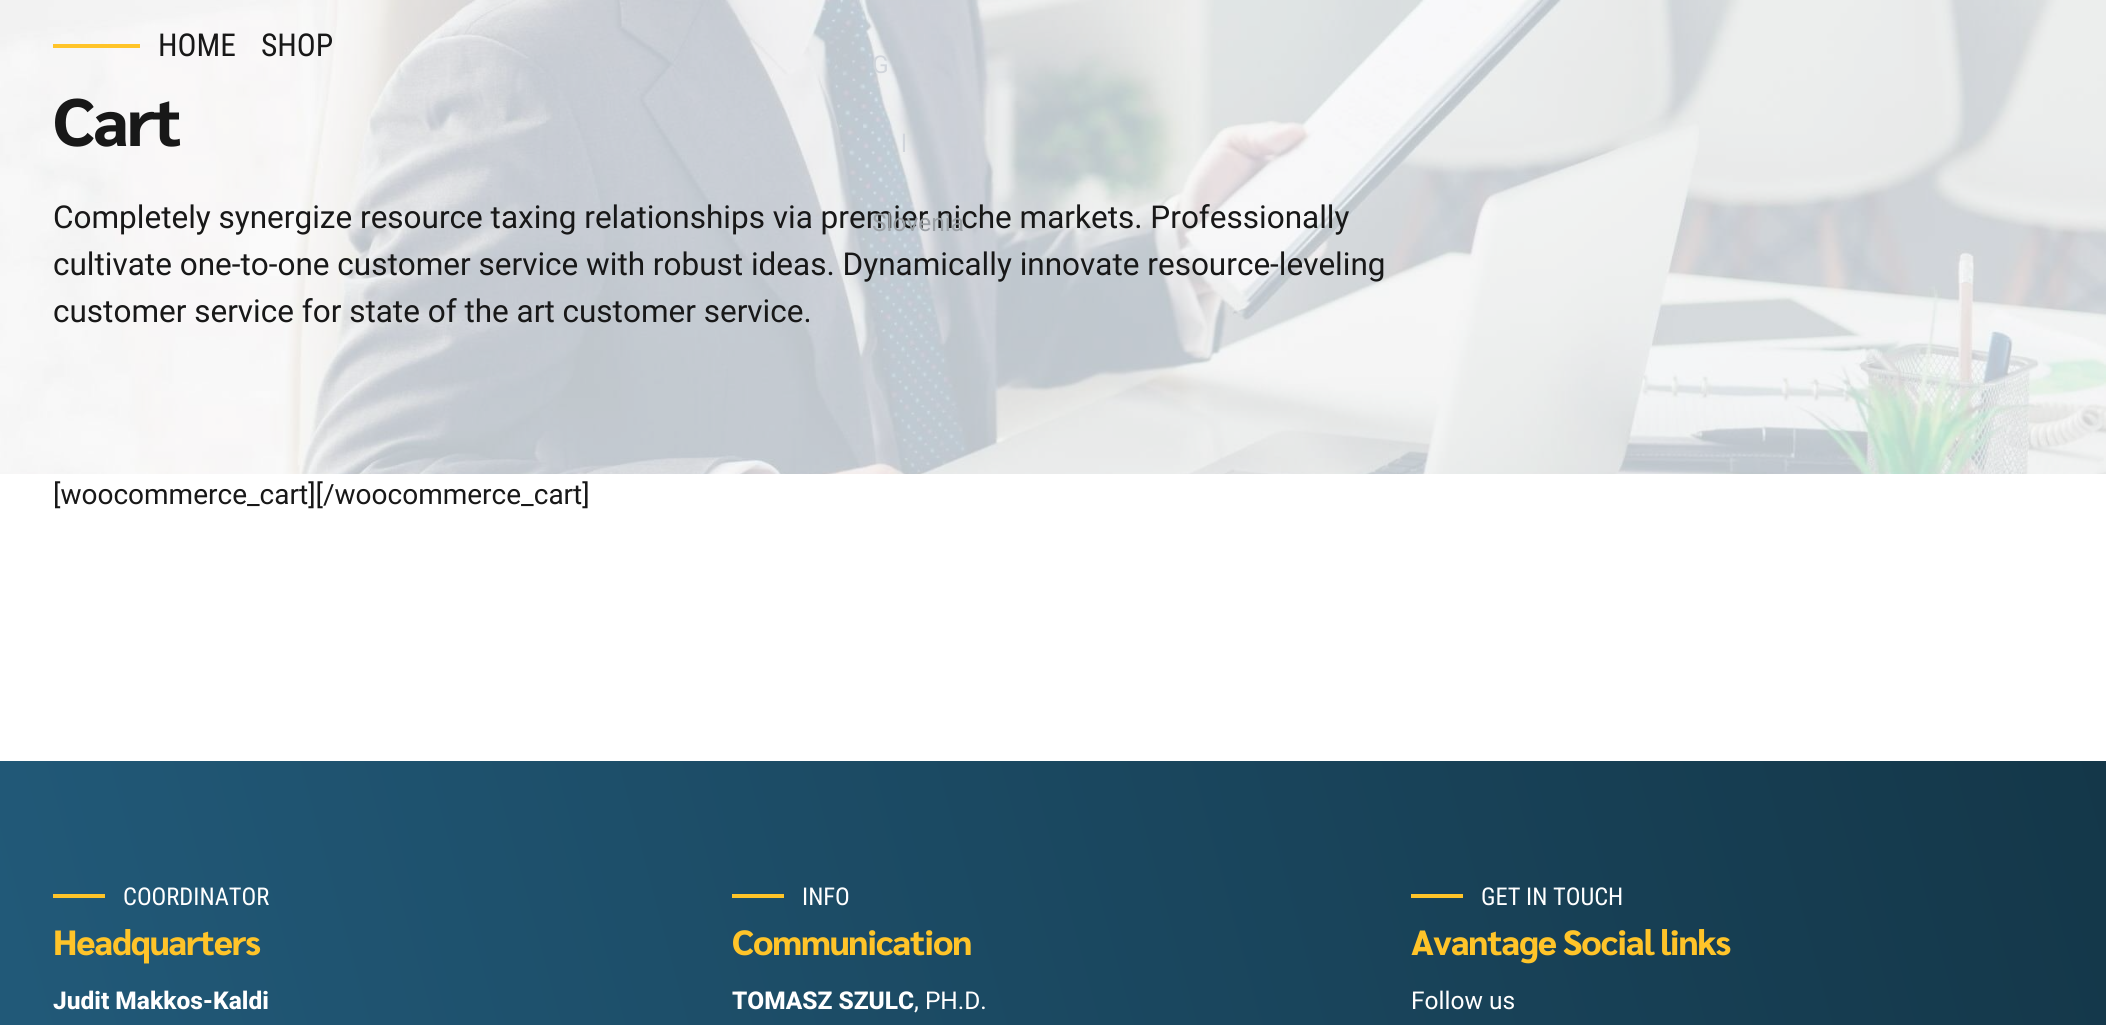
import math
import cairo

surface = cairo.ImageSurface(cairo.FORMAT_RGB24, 2106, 1025)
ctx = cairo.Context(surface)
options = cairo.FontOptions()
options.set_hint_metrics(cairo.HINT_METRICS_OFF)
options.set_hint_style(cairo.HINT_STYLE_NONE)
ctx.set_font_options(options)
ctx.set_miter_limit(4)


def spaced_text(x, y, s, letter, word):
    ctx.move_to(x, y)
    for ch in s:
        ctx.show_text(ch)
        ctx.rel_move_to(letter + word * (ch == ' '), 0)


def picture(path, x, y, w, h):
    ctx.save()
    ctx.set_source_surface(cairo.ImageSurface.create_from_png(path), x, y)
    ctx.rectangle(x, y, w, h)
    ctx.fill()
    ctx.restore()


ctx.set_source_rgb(1, 1, 1)
ctx.paint()
picture("img1.png", 0, 0, 2106, 474)
ctx.set_source_rgb(1, 0.769, 0.161)
ctx.rectangle(53, 44, 87, 4)
ctx.fill()
ctx.select_font_face("Roboto Condensed")
ctx.set_font_size(31.5)
ctx.set_source_rgb(0.094, 0.094, 0.094)
ctx.move_to(158, 56)
ctx.show_text("HOME")
ctx.move_to(261, 56)
ctx.show_text("SHOP")
ctx.select_font_face("Sarabun ExtraBold")
ctx.set_font_size(67)
spaced_text(53, 146, "Cart", -2, 0)
ctx.select_font_face("Roboto")
ctx.set_font_size(31.5)
ctx.move_to(53, 228)
ctx.show_text("Completely synergize resource taxing relationships via premier niche markets. Professionally")
ctx.move_to(53, 275)
ctx.show_text("cultivate one-to-one customer service with robust ideas. Dynamically innovate resource-leveling")
ctx.move_to(53, 322)
ctx.show_text("customer service for state of the art customer service.")
ctx.set_font_size(28)
ctx.move_to(53, 504)
ctx.show_text("[woocommerce_cart][/woocommerce_cart]")
ctx.set_font_size(24.5)
ctx.set_source_rgb(0.82, 0.835, 0.859)
ctx.move_to(872, 73)
ctx.show_text("G")
ctx.move_to(901, 152)
ctx.show_text("l")
ctx.set_source_rgb(0.604, 0.624, 0.643)
ctx.move_to(872, 231)
ctx.show_text("Slovenia")
gradient = cairo.LinearGradient(-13, 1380, 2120, 809)
gradient.add_color_stop_rgba(0, 0.133, 0.357, 0.482, 1)
gradient.add_color_stop_rgba(1, 0.078, 0.216, 0.286, 1)
ctx.set_source(gradient)
ctx.rectangle(0, 761, 2106, 264)
ctx.fill()
ctx.set_source_rgb(1, 0.769, 0.161)
ctx.rectangle(53, 894, 52, 4)
ctx.fill()
ctx.select_font_face("Roboto Condensed")
ctx.set_source_rgb(1, 1, 1)
ctx.move_to(123, 905)
ctx.show_text("COORDINATOR")
ctx.select_font_face("Sarabun ExtraBold")
ctx.set_font_size(35)
ctx.set_source_rgb(1, 0.769, 0.161)
spaced_text(53, 955, "Headquarters", -1.05, 0)
ctx.select_font_face("Roboto ExtraBold")
ctx.set_font_size(24.5)
ctx.set_source_rgb(1, 1, 1)
ctx.move_to(53, 1009)
ctx.show_text("Judit Makkos-Kaldi")
ctx.set_source_rgb(1, 0.769, 0.161)
ctx.rectangle(732, 894, 52, 4)
ctx.fill()
ctx.select_font_face("Roboto Condensed")
ctx.set_source_rgb(1, 1, 1)
ctx.move_to(802, 905)
ctx.show_text("INFO")
ctx.select_font_face("Sarabun ExtraBold")
ctx.set_font_size(35)
ctx.set_source_rgb(1, 0.769, 0.161)
spaced_text(732, 955, "Communication", -1.05, 0)
ctx.select_font_face("Roboto ExtraBold")
ctx.set_font_size(24.5)
ctx.set_source_rgb(1, 1, 1)
ctx.move_to(732, 1009)
ctx.show_text("TOMASZ SZULC")
ctx.select_font_face("Roboto")
ctx.move_to(914, 1009)
ctx.show_text(", PH.D.")
ctx.set_source_rgb(1, 0.769, 0.161)
ctx.rectangle(1411, 894, 52, 4)
ctx.fill()
ctx.select_font_face("Roboto Condensed")
ctx.set_source_rgb(1, 1, 1)
ctx.move_to(1481, 905)
ctx.show_text("GET IN TOUCH")
ctx.select_font_face("Sarabun ExtraBold")
ctx.set_font_size(35)
ctx.set_source_rgb(1, 0.769, 0.161)
spaced_text(1411, 955, "Avantage Social links", -1.05, 0)
ctx.select_font_face("Roboto")
ctx.set_font_size(24.5)
ctx.set_source_rgb(1, 1, 1)
ctx.move_to(1411, 1009)
ctx.show_text("Follow us")
surface.write_to_png("page.png")
